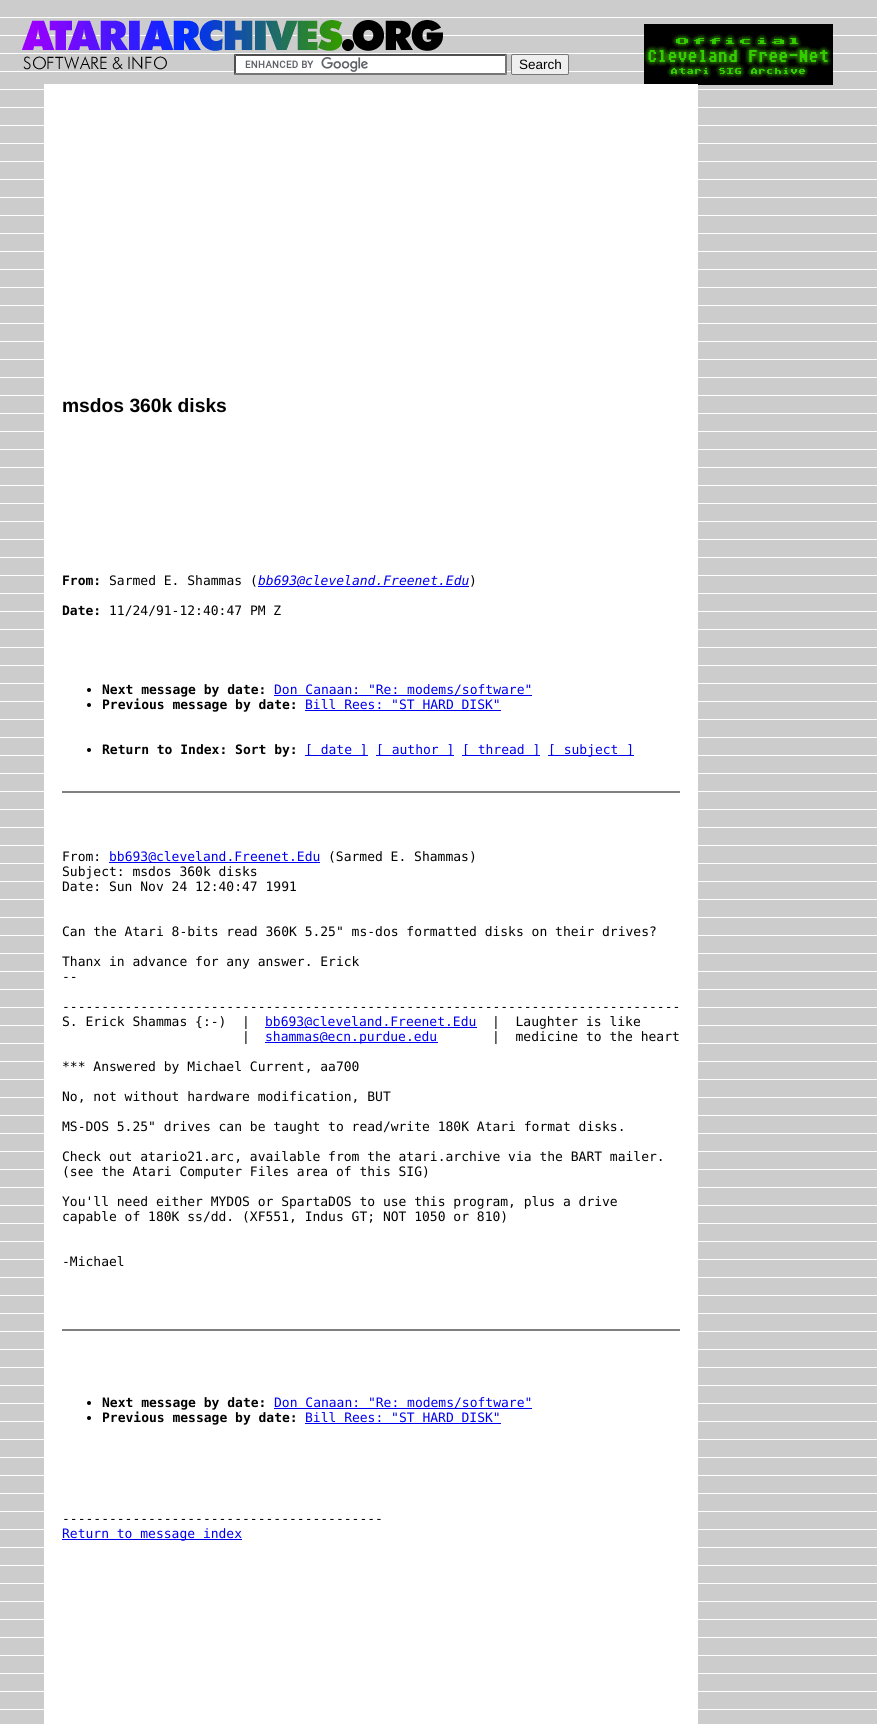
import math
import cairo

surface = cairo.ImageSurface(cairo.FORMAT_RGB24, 877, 1724)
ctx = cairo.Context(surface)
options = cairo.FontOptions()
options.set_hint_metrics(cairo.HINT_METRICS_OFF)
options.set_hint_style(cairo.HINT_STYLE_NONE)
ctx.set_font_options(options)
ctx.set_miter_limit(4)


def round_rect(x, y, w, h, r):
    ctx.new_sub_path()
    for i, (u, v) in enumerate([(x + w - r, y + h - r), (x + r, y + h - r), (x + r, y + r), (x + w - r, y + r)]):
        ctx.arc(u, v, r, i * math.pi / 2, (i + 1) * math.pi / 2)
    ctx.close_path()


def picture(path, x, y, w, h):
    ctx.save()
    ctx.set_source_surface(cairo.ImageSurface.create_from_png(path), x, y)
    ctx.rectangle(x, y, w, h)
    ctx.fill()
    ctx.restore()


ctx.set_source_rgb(1, 1, 1)
ctx.paint()
picture("img1.png", 0, 0, 877, 1724)
picture("img2.png", 22, 20, 421, 50)
picture("img3.png", 644, 24, 189, 61)
ctx.set_source_rgb(1, 1, 1)
ctx.rectangle(44, 84, 654, 1640)
ctx.fill()
ctx.rectangle(234, 54, 273, 21)
ctx.fill()
picture("img4.png", 245, 57, 123, 15)
ctx.set_source_rgb(0.31, 0.31, 0.31)
ctx.new_path()
ctx.move_to(234, 54)
ctx.line_to(507, 54)
ctx.line_to(505, 56)
ctx.line_to(236, 56)
ctx.close_path()
ctx.fill()
ctx.set_source_rgb(0.463, 0.463, 0.463)
ctx.new_path()
ctx.move_to(507, 54)
ctx.line_to(507, 75)
ctx.line_to(505, 73)
ctx.line_to(505, 56)
ctx.close_path()
ctx.fill()
ctx.new_path()
ctx.move_to(507, 75)
ctx.line_to(234, 75)
ctx.line_to(236, 73)
ctx.line_to(505, 73)
ctx.close_path()
ctx.fill()
ctx.set_source_rgb(0.31, 0.31, 0.31)
ctx.new_path()
ctx.move_to(234, 75)
ctx.line_to(234, 54)
ctx.line_to(236, 56)
ctx.line_to(236, 73)
ctx.close_path()
ctx.fill()
ctx.set_source_rgb(0.937, 0.937, 0.937)
round_rect(511.5, 54.5, 57, 20, 1.5)
ctx.fill_preserve()
ctx.set_source_rgb(0.463, 0.463, 0.463)
ctx.set_line_width(1)
ctx.stroke()
ctx.select_font_face("Liberation Sans")
ctx.set_font_size(13.5)
ctx.set_source_rgb(0, 0, 0)
ctx.move_to(519, 69)
ctx.show_text("Search")
ctx.select_font_face("Liberation Sans", cairo.FONT_SLANT_NORMAL, cairo.FONT_WEIGHT_BOLD)
ctx.set_font_size(19.25)
ctx.move_to(62, 412)
ctx.show_text("msdos 360k disks")
ctx.select_font_face("DejaVu Sans Mono", cairo.FONT_SLANT_NORMAL, cairo.FONT_WEIGHT_BOLD)
ctx.set_font_size(13)
ctx.move_to(62, 585)
ctx.show_text("From:")
ctx.select_font_face("DejaVu Sans Mono")
ctx.move_to(109, 585)
ctx.show_text("Sarmed E. Shammas (")
ctx.set_source_rgb(0, 0, 0.933)
ctx.rectangle(258, 586, 211, 1)
ctx.fill()
ctx.select_font_face("DejaVu Sans Mono", cairo.FONT_SLANT_ITALIC)
ctx.move_to(258, 585)
ctx.show_text("bb693@cleveland.Freenet.Edu")
ctx.select_font_face("DejaVu Sans Mono")
ctx.set_source_rgb(0, 0, 0)
ctx.move_to(469, 585)
ctx.show_text(")")
ctx.select_font_face("DejaVu Sans Mono", cairo.FONT_SLANT_NORMAL, cairo.FONT_WEIGHT_BOLD)
ctx.move_to(62, 615)
ctx.show_text("Date:")
ctx.select_font_face("DejaVu Sans Mono")
ctx.move_to(109, 615)
ctx.show_text("11/24/91-12:40:47 PM Z")
ctx.new_path()
ctx.arc(89, 690, 2, 0, 2 * math.pi)
ctx.fill()
ctx.select_font_face("DejaVu Sans Mono", cairo.FONT_SLANT_NORMAL, cairo.FONT_WEIGHT_BOLD)
ctx.move_to(102, 694)
ctx.show_text("Next message by date:")
ctx.set_source_rgb(0, 0, 0.933)
ctx.rectangle(274, 695, 258, 1)
ctx.fill()
ctx.select_font_face("DejaVu Sans Mono")
ctx.move_to(274, 694)
ctx.show_text("Don Canaan: \"Re: modems/software\"")
ctx.set_source_rgb(0, 0, 0)
ctx.new_path()
ctx.arc(89, 705, 2, 0, 2 * math.pi)
ctx.fill()
ctx.select_font_face("DejaVu Sans Mono", cairo.FONT_SLANT_NORMAL, cairo.FONT_WEIGHT_BOLD)
ctx.move_to(102, 709)
ctx.show_text("Previous message by date:")
ctx.select_font_face("DejaVu Sans Mono")
ctx.set_source_rgb(0, 0, 0.933)
ctx.move_to(305, 709)
ctx.show_text("Bill Rees: \"ST HARD DISK\"")
ctx.rectangle(305, 710, 196, 1)
ctx.fill()
ctx.set_source_rgb(0, 0, 0)
ctx.arc(89, 750, 2, 0, 2 * math.pi)
ctx.fill()
ctx.select_font_face("DejaVu Sans Mono", cairo.FONT_SLANT_NORMAL, cairo.FONT_WEIGHT_BOLD)
ctx.move_to(102, 754)
ctx.show_text("Return to Index: Sort by:")
ctx.set_source_rgb(0, 0, 0.933)
ctx.rectangle(305, 755, 63, 1)
ctx.fill()
ctx.select_font_face("DejaVu Sans Mono")
ctx.move_to(305, 754)
ctx.show_text("[ date ]")
ctx.rectangle(376, 755, 78, 1)
ctx.fill()
ctx.move_to(376, 754)
ctx.show_text("[ author ]")
ctx.rectangle(462, 755, 78, 1)
ctx.fill()
ctx.move_to(462, 754)
ctx.show_text("[ thread ]")
ctx.rectangle(548, 755, 86, 1)
ctx.fill()
ctx.move_to(548, 754)
ctx.show_text("[ subject ]")
ctx.set_source_rgb(0.502, 0.502, 0.502)
ctx.rectangle(62, 791, 618, 2)
ctx.fill()
ctx.set_source_rgb(0, 0, 0)
ctx.move_to(62, 861)
ctx.show_text("From:")
ctx.set_source_rgb(0, 0, 0.933)
ctx.rectangle(109, 862, 211, 1)
ctx.fill()
ctx.move_to(109, 861)
ctx.show_text("bb693@cleveland.Freenet.Edu")
ctx.set_source_rgb(0, 0, 0)
ctx.move_to(328, 861)
ctx.show_text("(Sarmed E. Shammas)")
ctx.move_to(62, 876)
ctx.show_text("Subject: msdos 360k disks")
ctx.move_to(62, 891)
ctx.show_text("Date: Sun Nov 24 12:40:47 1991")
ctx.move_to(62, 936)
ctx.show_text("Can the Atari 8-bits read 360K 5.25\" ms-dos formatted disks on their drives?")
ctx.move_to(62, 966)
ctx.show_text("Thanx in advance for any answer. Erick")
ctx.move_to(62, 981)
ctx.show_text("--")
ctx.move_to(62, 1011)
ctx.show_text("-------------------------------------------------------------------------------")
ctx.move_to(62, 1026)
ctx.show_text("S. Erick Shammas {:-)  |")
ctx.set_source_rgb(0, 0, 0.933)
ctx.rectangle(265, 1027, 212, 1)
ctx.fill()
ctx.move_to(265, 1026)
ctx.show_text("bb693@cleveland.Freenet.Edu")
ctx.set_source_rgb(0, 0, 0)
ctx.move_to(492, 1026)
ctx.show_text("|  Laughter is like")
ctx.move_to(242, 1041)
ctx.show_text("|")
ctx.set_source_rgb(0, 0, 0.933)
ctx.rectangle(265, 1042, 173, 1)
ctx.fill()
ctx.move_to(265, 1041)
ctx.show_text("shammas@ecn.purdue.edu")
ctx.set_source_rgb(0, 0, 0)
ctx.move_to(492, 1041)
ctx.show_text("|  medicine to the heart")
ctx.move_to(62, 1071)
ctx.show_text("*** Answered by Michael Current, aa700")
ctx.move_to(62, 1101)
ctx.show_text("No, not without hardware modification, BUT")
ctx.move_to(62, 1131)
ctx.show_text("MS-DOS 5.25\" drives can be taught to read/write 180K Atari format disks.")
ctx.move_to(62, 1161)
ctx.show_text("Check out atario21.arc, available from the atari.archive via the BART mailer.")
ctx.move_to(62, 1176)
ctx.show_text("(see the Atari Computer Files area of this SIG)")
ctx.move_to(62, 1206)
ctx.show_text("You'll need either MYDOS or SpartaDOS to use this program, plus a drive")
ctx.move_to(62, 1221)
ctx.show_text("capable of 180K ss/dd. (XF551, Indus GT; NOT 1050 or 810)")
ctx.move_to(62, 1266)
ctx.show_text("-Michael")
ctx.set_source_rgb(0.502, 0.502, 0.502)
ctx.rectangle(62, 1329, 618, 2)
ctx.fill()
ctx.set_source_rgb(0, 0, 0)
ctx.arc(89, 1403, 2, 0, 2 * math.pi)
ctx.fill()
ctx.select_font_face("DejaVu Sans Mono", cairo.FONT_SLANT_NORMAL, cairo.FONT_WEIGHT_BOLD)
ctx.move_to(102, 1407)
ctx.show_text("Next message by date:")
ctx.set_source_rgb(0, 0, 0.933)
ctx.rectangle(274, 1408, 258, 1)
ctx.fill()
ctx.select_font_face("DejaVu Sans Mono")
ctx.move_to(274, 1407)
ctx.show_text("Don Canaan: \"Re: modems/software\"")
ctx.set_source_rgb(0, 0, 0)
ctx.new_path()
ctx.arc(89, 1418, 2, 0, 2 * math.pi)
ctx.fill()
ctx.select_font_face("DejaVu Sans Mono", cairo.FONT_SLANT_NORMAL, cairo.FONT_WEIGHT_BOLD)
ctx.move_to(102, 1422)
ctx.show_text("Previous message by date:")
ctx.select_font_face("DejaVu Sans Mono")
ctx.set_source_rgb(0, 0, 0.933)
ctx.move_to(305, 1422)
ctx.show_text("Bill Rees: \"ST HARD DISK\"")
ctx.rectangle(305, 1423, 196, 1)
ctx.fill()
ctx.set_source_rgb(0, 0, 0)
ctx.move_to(62, 1523)
ctx.show_text("-----------------------------------------")
ctx.set_source_rgb(0, 0, 0.933)
ctx.rectangle(62, 1539, 180, 1)
ctx.fill()
ctx.move_to(62, 1538)
ctx.show_text("Return to message index")
surface.write_to_png("page.png")
